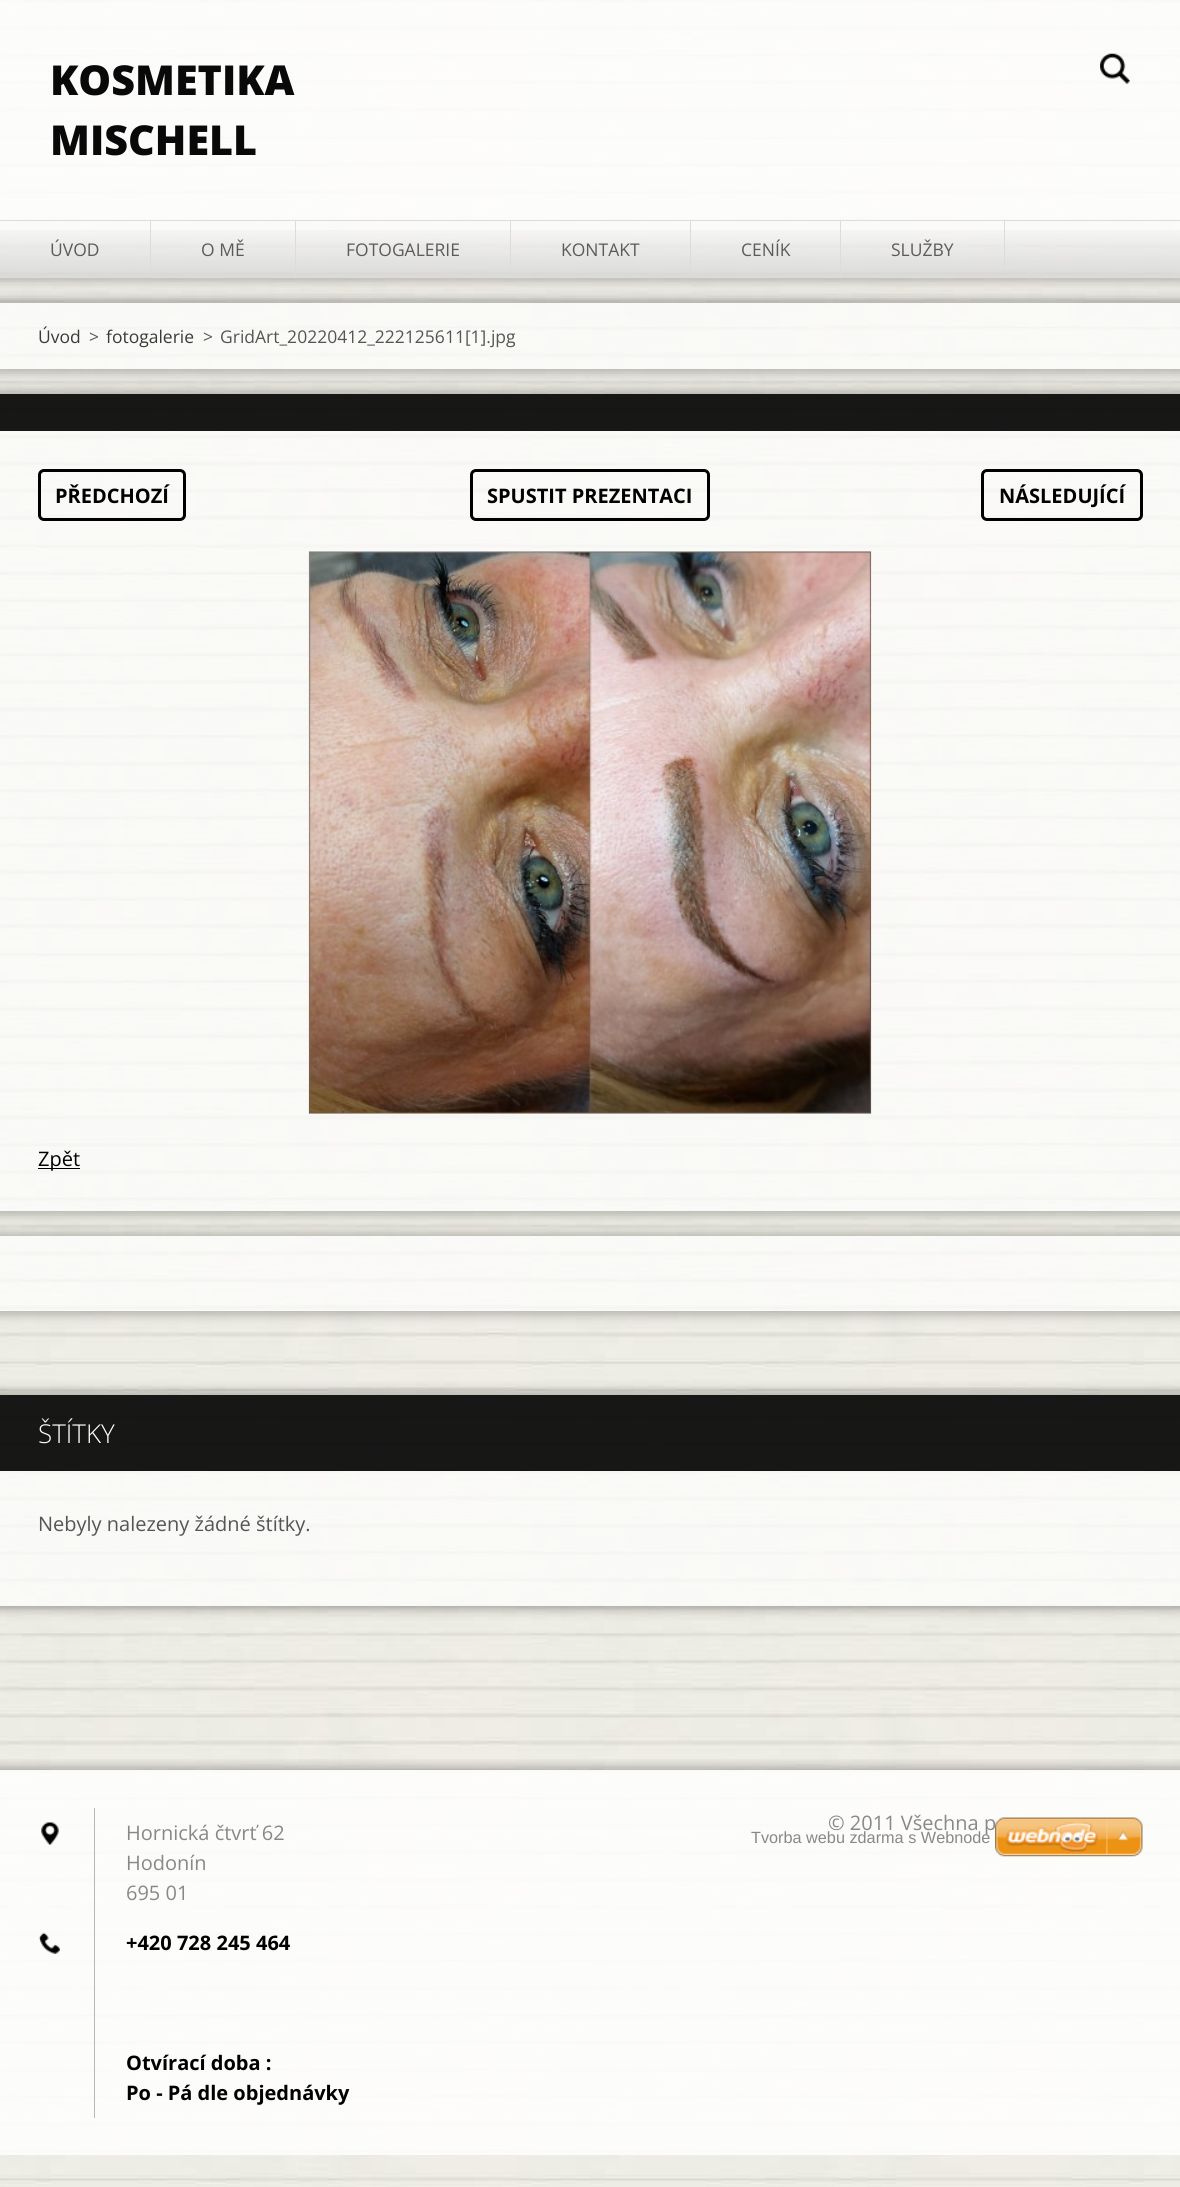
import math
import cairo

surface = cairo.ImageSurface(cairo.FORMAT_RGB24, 1180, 2187)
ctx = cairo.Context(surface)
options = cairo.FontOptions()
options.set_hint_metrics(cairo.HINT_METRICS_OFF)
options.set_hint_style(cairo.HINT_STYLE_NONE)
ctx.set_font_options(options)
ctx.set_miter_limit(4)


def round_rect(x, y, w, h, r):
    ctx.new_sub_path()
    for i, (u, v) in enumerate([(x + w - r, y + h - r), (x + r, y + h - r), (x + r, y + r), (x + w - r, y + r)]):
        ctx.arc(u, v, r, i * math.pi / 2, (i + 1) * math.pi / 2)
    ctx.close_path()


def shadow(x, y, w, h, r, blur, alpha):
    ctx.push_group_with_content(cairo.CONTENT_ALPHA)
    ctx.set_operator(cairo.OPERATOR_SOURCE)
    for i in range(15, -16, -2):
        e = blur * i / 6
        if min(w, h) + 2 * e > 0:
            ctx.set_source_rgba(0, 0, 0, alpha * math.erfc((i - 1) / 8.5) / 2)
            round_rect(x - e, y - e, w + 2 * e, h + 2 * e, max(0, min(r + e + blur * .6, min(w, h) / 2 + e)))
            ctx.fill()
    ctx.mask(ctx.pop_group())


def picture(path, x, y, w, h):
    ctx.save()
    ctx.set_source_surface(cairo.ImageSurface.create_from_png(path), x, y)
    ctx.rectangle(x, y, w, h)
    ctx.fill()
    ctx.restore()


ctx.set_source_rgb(1, 1, 1)
ctx.paint()
picture("img1.png", 0, 0, 1180, 2187)
ctx.save()
ctx.set_fill_rule(cairo.FILL_RULE_EVEN_ODD)
ctx.new_path()
ctx.move_to(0, 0)
ctx.line_to(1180, 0)
ctx.line_to(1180, 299)
ctx.line_to(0, 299)
ctx.close_path()
ctx.move_to(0, 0)
ctx.line_to(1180, 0)
ctx.line_to(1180, 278)
ctx.line_to(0, 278)
ctx.close_path()
ctx.clip()
ctx.set_source_rgb(0, 0, 0)
shadow(-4, -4, 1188, 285, 0, 5.5, 0.25)
ctx.restore()
ctx.set_source_rgba(1, 1, 1, 0.85)
ctx.rectangle(0, 0, 1180, 220)
ctx.fill()
ctx.select_font_face("Open Sans ExtraBold")
ctx.set_font_size(41.25)
ctx.set_source_rgb(0.039, 0.039, 0.039)
ctx.move_to(50, 95)
ctx.show_text("KOSMETIKA")
ctx.move_to(50, 155)
ctx.show_text("MISCHELL")
picture("img2.png", 1100, 53, 30, 31)
ctx.set_source_rgb(0.867, 0.863, 0.859)
ctx.rectangle(0, 220, 1180, 1)
ctx.fill()
ctx.set_source_rgba(1, 1, 1, 0.75)
ctx.rectangle(0, 221, 1180, 57)
ctx.fill()
gradient = cairo.LinearGradient(590, 221, 590, 278)
gradient.add_color_stop_rgba(0, 0, 0, 0, 0)
gradient.add_color_stop_rgba(1, 0, 0, 0, 0.13)
ctx.set_source(gradient)
ctx.rectangle(0, 230, 1180, 48)
ctx.fill()
ctx.set_source_rgb(0.867, 0.863, 0.859)
ctx.rectangle(150, 221, 1, 57)
ctx.fill()
ctx.select_font_face("Open Sans")
ctx.set_font_size(17.5)
ctx.set_source_rgb(0.357, 0.357, 0.357)
ctx.move_to(50, 256)
ctx.show_text("ÚVOD")
ctx.set_source_rgb(0.867, 0.863, 0.859)
ctx.rectangle(295, 221, 1, 57)
ctx.fill()
ctx.set_source_rgb(0.357, 0.357, 0.357)
ctx.move_to(201, 256)
ctx.show_text("O MĚ")
ctx.set_source_rgb(0.867, 0.863, 0.859)
ctx.rectangle(510, 221, 1, 57)
ctx.fill()
ctx.set_source_rgb(0.357, 0.357, 0.357)
ctx.move_to(346, 256)
ctx.show_text("FOTOGALERIE")
ctx.set_source_rgb(0.867, 0.863, 0.859)
ctx.rectangle(690, 221, 1, 57)
ctx.fill()
ctx.set_source_rgb(0.357, 0.357, 0.357)
ctx.move_to(561, 256)
ctx.show_text("KONTAKT")
ctx.set_source_rgb(0.867, 0.863, 0.859)
ctx.rectangle(840, 221, 1, 57)
ctx.fill()
ctx.set_source_rgb(0.357, 0.357, 0.357)
ctx.move_to(741, 256)
ctx.show_text("CENÍK")
ctx.set_source_rgb(0.867, 0.863, 0.859)
ctx.rectangle(1004, 221, 1, 57)
ctx.fill()
ctx.set_source_rgb(0.357, 0.357, 0.357)
ctx.move_to(891, 256)
ctx.show_text("SLUŽBY")
ctx.save()
ctx.set_fill_rule(cairo.FILL_RULE_EVEN_ODD)
ctx.new_path()
ctx.move_to(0, 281)
ctx.line_to(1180, 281)
ctx.line_to(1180, 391)
ctx.line_to(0, 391)
ctx.close_path()
ctx.move_to(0, 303)
ctx.line_to(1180, 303)
ctx.line_to(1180, 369)
ctx.line_to(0, 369)
ctx.close_path()
ctx.clip()
ctx.set_source_rgb(0, 0, 0)
shadow(-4, 299, 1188, 74, 0, 5.5, 0.25)
ctx.restore()
ctx.set_source_rgba(1, 1, 1, 0.7)
ctx.rectangle(0, 303, 1180, 66)
ctx.fill()
ctx.set_source_rgb(0.227, 0.227, 0.227)
ctx.move_to(38, 343)
ctx.show_text("Úvod")
ctx.set_source_rgb(0.333, 0.333, 0.333)
ctx.move_to(89, 343)
ctx.show_text(">")
ctx.set_source_rgb(0.227, 0.227, 0.227)
ctx.move_to(106, 343)
ctx.show_text("fotogalerie")
ctx.set_source_rgb(0.333, 0.333, 0.333)
ctx.move_to(203, 343)
ctx.show_text(">")
ctx.move_to(220, 343)
ctx.show_text("GridArt_20220412_222125611[1].jpg")
ctx.save()
ctx.set_fill_rule(cairo.FILL_RULE_EVEN_ODD)
ctx.new_path()
ctx.move_to(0, 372)
ctx.line_to(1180, 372)
ctx.line_to(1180, 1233)
ctx.line_to(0, 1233)
ctx.close_path()
ctx.move_to(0, 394)
ctx.line_to(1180, 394)
ctx.line_to(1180, 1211)
ctx.line_to(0, 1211)
ctx.close_path()
ctx.clip()
ctx.set_source_rgb(0, 0, 0)
shadow(-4, 390, 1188, 825, 0, 5.5, 0.25)
ctx.restore()
ctx.set_source_rgba(0, 0, 0, 0.9)
ctx.rectangle(0, 394, 1180, 37)
ctx.fill()
ctx.set_source_rgba(1, 1, 1, 0.7)
ctx.rectangle(0, 431, 1180, 713)
ctx.fill()
round_rect(39.5, 470.5, 145, 49, 4.5)
ctx.set_source_rgb(0, 0, 0)
ctx.set_line_width(3)
ctx.stroke()
ctx.select_font_face("Open Sans", cairo.FONT_SLANT_NORMAL, cairo.FONT_WEIGHT_BOLD)
ctx.set_font_size(20)
ctx.move_to(55, 503)
ctx.show_text("PŘEDCHOZÍ")
round_rect(471.5, 470.5, 237, 49, 4.5)
ctx.stroke()
ctx.move_to(487, 503)
ctx.show_text("SPUSTIT PREZENTACI")
round_rect(982.5, 470.5, 159, 49, 4.5)
ctx.stroke()
ctx.move_to(999, 503)
ctx.show_text("NÁSLEDUJÍCÍ")
picture("img3.png", 308, 551, 564, 563)
ctx.set_source_rgba(1, 1, 1, 0.7)
ctx.rectangle(0, 1144, 1180, 67)
ctx.fill()
ctx.set_source_rgb(0, 0, 0)
ctx.rectangle(38, 1168, 42, 1)
ctx.fill()
ctx.select_font_face("Open Sans")
ctx.move_to(38, 1166)
ctx.show_text("Zpět")
ctx.save()
ctx.set_fill_rule(cairo.FILL_RULE_EVEN_ODD)
ctx.new_path()
ctx.move_to(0, 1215)
ctx.line_to(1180, 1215)
ctx.line_to(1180, 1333)
ctx.line_to(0, 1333)
ctx.close_path()
ctx.move_to(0, 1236)
ctx.line_to(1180, 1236)
ctx.line_to(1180, 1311)
ctx.line_to(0, 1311)
ctx.close_path()
ctx.clip()
ctx.set_source_rgb(0, 0, 0)
shadow(-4, 1233, 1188, 82, 0, 5.5, 0.25)
ctx.restore()
ctx.set_source_rgba(1, 1, 1, 0.7)
ctx.rectangle(0, 1236, 1180, 38)
ctx.fill()
ctx.rectangle(0, 1274, 1180, 37)
ctx.fill()
ctx.save()
ctx.set_fill_rule(cairo.FILL_RULE_EVEN_ODD)
ctx.new_path()
ctx.move_to(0, 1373)
ctx.line_to(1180, 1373)
ctx.line_to(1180, 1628)
ctx.line_to(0, 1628)
ctx.close_path()
ctx.move_to(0, 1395)
ctx.line_to(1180, 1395)
ctx.line_to(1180, 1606)
ctx.line_to(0, 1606)
ctx.close_path()
ctx.clip()
ctx.set_source_rgb(0, 0, 0)
shadow(-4, 1391, 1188, 219, 0, 5.5, 0.25)
ctx.restore()
ctx.set_source_rgba(0, 0, 0, 0.9)
ctx.rectangle(0, 1395, 1180, 76)
ctx.fill()
ctx.select_font_face("Open Sans Light")
ctx.set_font_size(26)
ctx.set_source_rgb(1, 1, 1)
ctx.move_to(38, 1443)
ctx.show_text("ŠTÍTKY")
ctx.set_source_rgba(1, 1, 1, 0.7)
ctx.rectangle(0, 1471, 1180, 98)
ctx.fill()
ctx.select_font_face("Open Sans")
ctx.set_font_size(20)
ctx.set_source_rgb(0.333, 0.333, 0.333)
ctx.move_to(38, 1531)
ctx.show_text("Nebyly nalezeny žádné štítky.")
ctx.set_source_rgba(1, 1, 1, 0.7)
ctx.rectangle(0, 1569, 1180, 37)
ctx.fill()
ctx.save()
ctx.rectangle(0, 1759, 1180, 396)
ctx.clip()
ctx.rectangle(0, 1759, 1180, 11)
ctx.clip()
ctx.set_source_rgb(0, 0, 0)
shadow(-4, 1766, 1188, 393, 0, 5.5, 0.25)
ctx.restore()
ctx.set_source_rgba(1, 1, 1, 0.85)
ctx.rectangle(0, 1770, 1180, 385)
ctx.fill()
picture("img4.png", 41, 1822, 18, 23)
ctx.set_source_rgb(0.718, 0.718, 0.718)
ctx.rectangle(94, 1808, 1, 310)
ctx.fill()
ctx.set_source_rgb(0.533, 0.533, 0.533)
ctx.move_to(126, 1840)
ctx.show_text("Hornická čtvrť 62")
ctx.move_to(126, 1870)
ctx.show_text("Hodonín")
ctx.move_to(126, 1900)
ctx.show_text("695 01")
picture("img5.png", 38, 1932, 22, 22)
ctx.select_font_face("Open Sans", cairo.FONT_SLANT_NORMAL, cairo.FONT_WEIGHT_BOLD)
ctx.set_source_rgb(0, 0, 0)
ctx.move_to(126, 1950)
ctx.show_text("+420 728 245 464")
ctx.move_to(126, 2070)
ctx.show_text("Otvírací doba :")
ctx.move_to(126, 2100)
ctx.show_text("Po - Pá dle objednávky")
ctx.select_font_face("Open Sans")
ctx.set_source_rgb(0.533, 0.533, 0.533)
ctx.move_to(828, 1830)
ctx.show_text("© 2011 Všechna p")
ctx.select_font_face("Liberation Sans")
ctx.set_font_size(16.25)
ctx.move_to(751, 1843)
ctx.show_text("Tvorba webu zdarma s Webnode")
picture("img6.png", 995, 1817, 148, 40)
surface.write_to_png("page.png")
